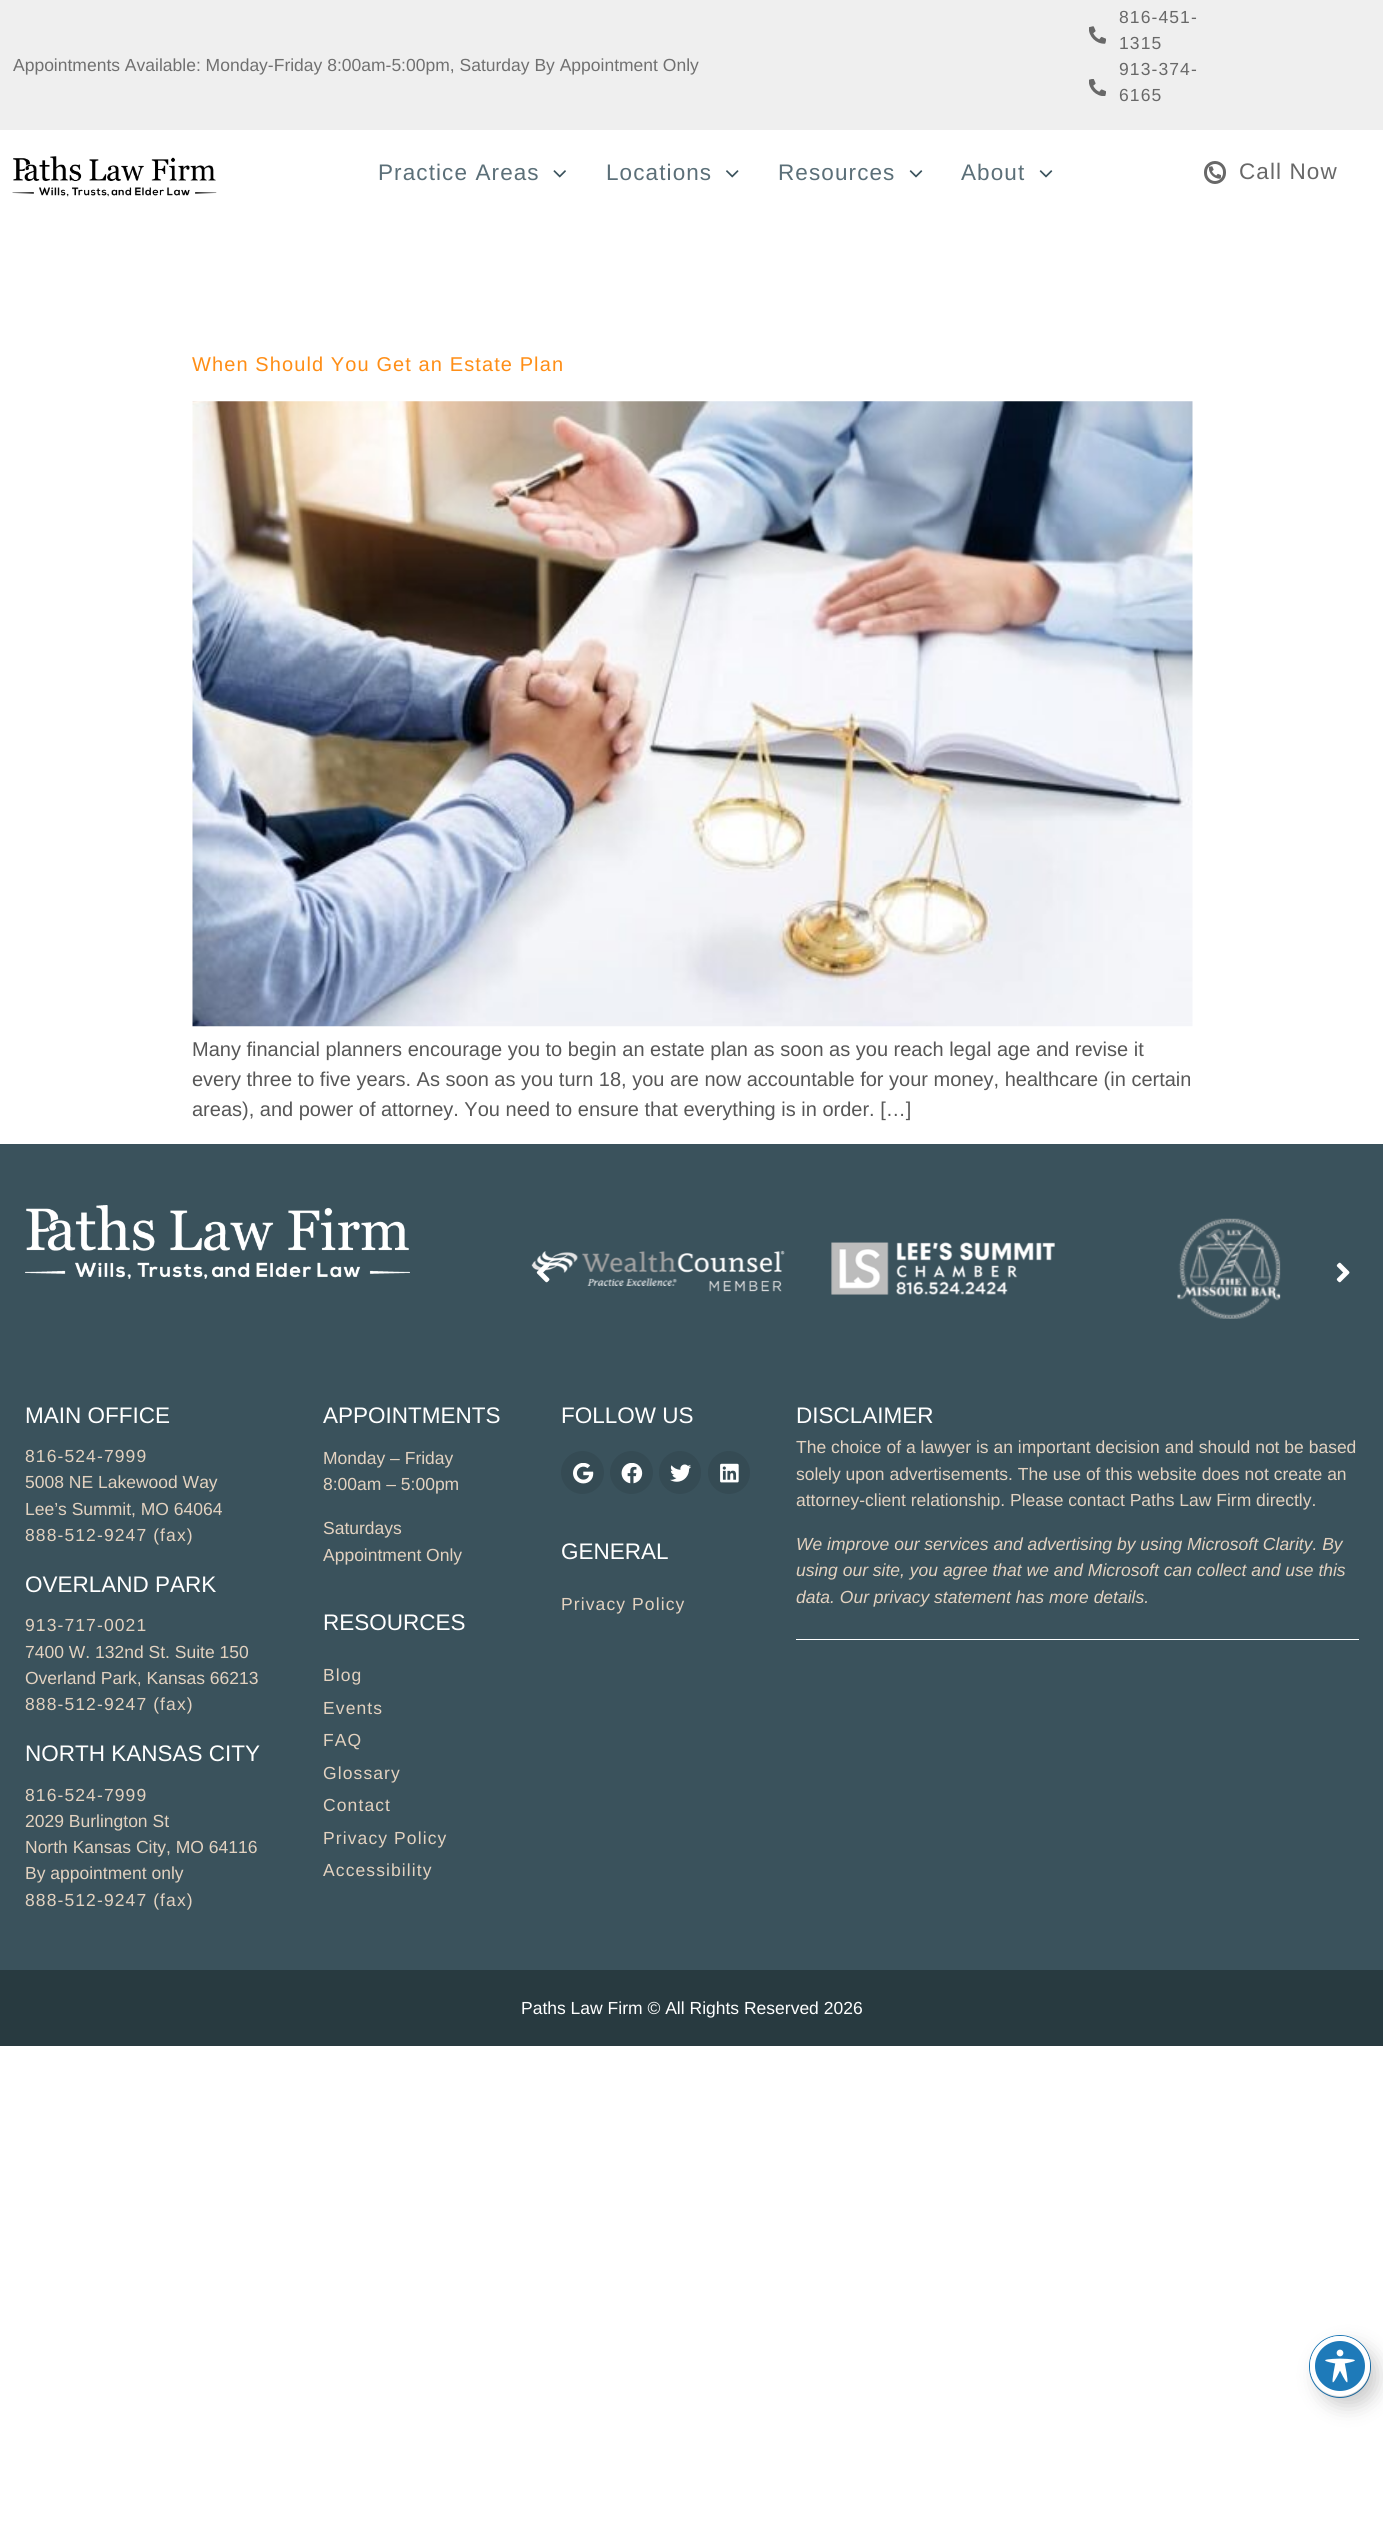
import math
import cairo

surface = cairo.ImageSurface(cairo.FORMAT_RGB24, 1383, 2547)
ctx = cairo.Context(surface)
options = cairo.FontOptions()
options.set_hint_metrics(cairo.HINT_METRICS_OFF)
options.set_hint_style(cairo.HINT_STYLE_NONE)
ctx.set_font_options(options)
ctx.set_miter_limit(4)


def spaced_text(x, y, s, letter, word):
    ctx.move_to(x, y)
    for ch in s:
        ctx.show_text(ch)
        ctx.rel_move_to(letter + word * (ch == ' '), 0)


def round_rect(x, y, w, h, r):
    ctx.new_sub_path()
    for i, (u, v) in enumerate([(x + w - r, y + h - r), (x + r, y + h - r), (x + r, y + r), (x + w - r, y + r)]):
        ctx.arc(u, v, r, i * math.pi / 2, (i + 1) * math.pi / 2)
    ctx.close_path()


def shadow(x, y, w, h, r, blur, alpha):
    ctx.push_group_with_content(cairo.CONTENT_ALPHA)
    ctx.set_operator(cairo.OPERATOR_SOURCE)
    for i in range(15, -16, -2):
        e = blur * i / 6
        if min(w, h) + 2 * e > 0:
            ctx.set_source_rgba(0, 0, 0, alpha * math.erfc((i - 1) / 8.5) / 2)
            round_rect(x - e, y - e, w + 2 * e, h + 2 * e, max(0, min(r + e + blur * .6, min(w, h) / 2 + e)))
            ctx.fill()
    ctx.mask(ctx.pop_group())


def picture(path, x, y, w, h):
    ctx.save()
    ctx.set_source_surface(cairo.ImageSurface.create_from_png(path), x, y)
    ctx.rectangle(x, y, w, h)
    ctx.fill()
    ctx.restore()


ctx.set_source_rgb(1, 1, 1)
ctx.paint()
ctx.set_source_rgb(0.937, 0.937, 0.937)
ctx.rectangle(0, 0, 1383, 130)
ctx.fill()
ctx.select_font_face("Liberation Sans")
ctx.set_font_size(17.5)
ctx.set_source_rgb(0.439, 0.439, 0.439)
ctx.move_to(13, 71)
ctx.show_text("Appointments Available: Monday-Friday 8:00am-5:00pm, Saturday By Appointment Only")
picture("img1.png", 1089, 26, 17, 18)
ctx.set_source_rgb(0.408, 0.408, 0.408)
spaced_text(1119, 23, "816-451-", 1.1, 0)
spaced_text(1119, 49, "1315", 1.1, 0)
picture("img2.png", 1089, 79, 17, 17)
spaced_text(1119, 75, "913-374-", 1.1, 0)
spaced_text(1119, 101, "6165", 1.1, 0)
picture("img3.png", 12, 156, 205, 41)
ctx.set_font_size(22.5)
ctx.set_source_rgb(0.357, 0.435, 0.471)
spaced_text(378, 180, "Practice Areas", 1.1, 0)
picture("img4.png", 553, 170, 13, 8)
spaced_text(606, 180, "Locations", 1.1, 0)
picture("img5.png", 726, 170, 13, 8)
spaced_text(778, 180, "Resources", 1.1, 0)
picture("img6.png", 909, 170, 14, 8)
spaced_text(961, 180, "About", 1.1, 0)
picture("img6.png", 1039, 170, 14, 8)
round_rect(1205.5, 162.5, 19, 20, 9.5)
ctx.set_source_rgb(0.408, 0.408, 0.408)
ctx.set_line_width(3)
ctx.stroke()
picture("img7.png", 1209, 166, 12, 13)
spaced_text(1239, 179, "Call Now", 1.1, 0)
ctx.set_font_size(20)
ctx.set_source_rgb(1, 0.557, 0.086)
spaced_text(192, 371, "When Should You Get an Estate Plan", 1.1, 0)
picture("img8.png", 192, 401, 1001, 626)
ctx.set_source_rgb(0.341, 0.341, 0.341)
ctx.move_to(192, 1056)
ctx.show_text("Many financial planners encourage you to begin an estate plan as soon as you reach legal age and revise it")
ctx.move_to(192, 1086)
ctx.show_text("every three to five years. As soon as you turn 18, you are now accountable for your money, healthcare (in certain")
ctx.move_to(192, 1116)
ctx.show_text("areas), and power of attorney. You need to ensure that everything is in order. […]")
ctx.set_source_rgb(0.227, 0.322, 0.361)
ctx.rectangle(0, 1144, 1383, 826)
ctx.fill()
picture("img9.png", 25, 1205, 385, 74)
picture("img10.png", 531, 1250, 254, 42)
picture("img11.png", 831, 1242, 224, 53)
picture("img12.png", 1177, 1218, 104, 101)
picture("img13.png", 536, 1262, 14, 21)
picture("img14.png", 1336, 1262, 14, 21)
ctx.set_font_size(22.5)
ctx.set_source_rgb(1, 1, 1)
ctx.move_to(25, 1423)
ctx.show_text("MAIN OFFICE")
ctx.set_font_size(17.5)
ctx.set_source_rgb(0.89, 0.824, 0.753)
spaced_text(25, 1462, "816-524-7999", 1.1, 0)
ctx.move_to(25, 1488)
ctx.show_text("5008 NE Lakewood Way")
ctx.move_to(25, 1515)
ctx.show_text("Lee’s Summit, MO 64064")
spaced_text(25, 1541, "888-512-9247 (fax)", 1.1, 0)
ctx.set_font_size(22.5)
ctx.set_source_rgb(1, 1, 1)
ctx.move_to(25, 1592)
ctx.show_text("OVERLAND PARK")
ctx.set_font_size(17.5)
ctx.set_source_rgb(0.89, 0.824, 0.753)
spaced_text(25, 1631, "913-717-0021", 1.1, 0)
ctx.move_to(25, 1658)
ctx.show_text("7400 W. 132nd St. Suite 150")
ctx.move_to(25, 1684)
ctx.show_text("Overland Park, Kansas 66213")
spaced_text(25, 1710, "888-512-9247 (fax)", 1.1, 0)
ctx.set_font_size(22.5)
ctx.set_source_rgb(1, 1, 1)
ctx.move_to(25, 1761)
ctx.show_text("NORTH KANSAS CITY")
ctx.set_font_size(17.5)
ctx.set_source_rgb(0.89, 0.824, 0.753)
spaced_text(25, 1801, "816-524-7999", 1.1, 0)
ctx.move_to(25, 1827)
ctx.show_text("2029 Burlington St")
ctx.move_to(25, 1853)
ctx.show_text("North Kansas City, MO 64116")
ctx.move_to(25, 1879)
ctx.show_text("By appointment only")
spaced_text(25, 1906, "888-512-9247 (fax)", 1.1, 0)
ctx.set_font_size(22.5)
ctx.set_source_rgb(1, 1, 1)
ctx.move_to(323, 1423)
ctx.show_text("APPOINTMENTS")
ctx.set_font_size(17.5)
ctx.set_source_rgb(0.89, 0.824, 0.753)
ctx.move_to(323, 1464)
ctx.show_text("Monday – Friday")
ctx.move_to(323, 1490)
ctx.show_text("8:00am – 5:00pm")
ctx.move_to(323, 1534)
ctx.show_text("Saturdays")
ctx.move_to(323, 1561)
ctx.show_text("Appointment Only")
ctx.set_font_size(22.5)
ctx.set_source_rgb(1, 1, 1)
ctx.move_to(323, 1630)
ctx.show_text("RESOURCES")
ctx.set_font_size(17.5)
ctx.set_source_rgb(0.89, 0.824, 0.753)
spaced_text(323, 1681, "Blog", 1.1, 0)
spaced_text(323, 1714, "Events", 1.1, 0)
spaced_text(323, 1746, "FAQ", 1.1, 0)
spaced_text(323, 1779, "Glossary", 1.1, 0)
spaced_text(323, 1811, "Contact", 1.1, 0)
spaced_text(323, 1844, "Privacy Policy", 1.1, 0)
spaced_text(323, 1876, "Accessibility", 1.1, 0)
ctx.set_font_size(22.5)
ctx.set_source_rgb(1, 1, 1)
ctx.move_to(561, 1423)
ctx.show_text("FOLLOW US")
ctx.set_source_rgb(0.208, 0.294, 0.329)
ctx.new_path()
ctx.arc(582.5, 1472.5, 21.5, 0, 2 * math.pi)
ctx.fill()
picture("img15.png", 573, 1463, 21, 21)
ctx.arc(631.5, 1472.5, 21.5, 0, 2 * math.pi)
ctx.fill()
picture("img16.png", 621, 1463, 22, 21)
round_rect(659, 1451, 42, 43, 21)
ctx.fill()
picture("img17.png", 670, 1464, 21, 18)
round_rect(708, 1451, 42, 43, 21)
ctx.fill()
picture("img18.png", 720, 1463, 19, 20)
ctx.set_source_rgb(1, 1, 1)
ctx.move_to(561, 1559)
ctx.show_text("GENERAL")
ctx.set_font_size(17.5)
ctx.set_source_rgb(0.89, 0.824, 0.753)
spaced_text(561, 1610, "Privacy Policy", 1.1, 0)
ctx.set_font_size(22.5)
ctx.set_source_rgb(1, 1, 1)
ctx.move_to(796, 1423)
ctx.show_text("DISCLAIMER")
ctx.set_font_size(17.5)
ctx.set_source_rgb(0.89, 0.824, 0.753)
ctx.move_to(796, 1453)
ctx.show_text("The choice of a lawyer is an important decision and should not be based")
ctx.move_to(796, 1480)
ctx.show_text("solely upon advertisements. The use of this website does not create an")
ctx.move_to(796, 1506)
ctx.show_text("attorney-client relationship. Please contact Paths Law Firm directly.")
ctx.select_font_face("Liberation Sans", cairo.FONT_SLANT_ITALIC)
ctx.move_to(796, 1550)
ctx.show_text("We improve our services and advertising by using Microsoft Clarity. By")
ctx.move_to(796, 1576)
ctx.show_text("using our site, you agree that we and Microsoft can collect and use this")
ctx.move_to(796, 1603)
ctx.show_text("data. Our privacy statement has more details.")
ctx.set_source_rgb(1, 1, 1)
ctx.rectangle(796, 1639, 563, 1)
ctx.fill()
ctx.set_source_rgb(0.157, 0.227, 0.251)
ctx.rectangle(0, 1970, 1383, 76)
ctx.fill()
ctx.select_font_face("Liberation Sans")
ctx.set_source_rgb(1, 1, 1)
ctx.move_to(521, 2014)
ctx.show_text("Paths Law Firm © All Rights Reserved 2026")
round_rect(1309.5, 2335.5, 61, 62, 30.5)
ctx.set_source_rgb(0.118, 0.478, 0.725)
ctx.set_line_width(1)
ctx.stroke()
ctx.set_source_rgb(0, 0, 0)
shadow(1318, 2346, 60, 60, 30, 10, 0.2)
ctx.set_source_rgb(0.118, 0.478, 0.725)
ctx.arc(1340, 2366, 27.5, 0, 2 * math.pi)
ctx.fill_preserve()
ctx.set_source_rgb(1, 1, 1)
ctx.set_line_width(5)
ctx.stroke()
picture("img19.png", 1325, 2349, 30, 34)
surface.write_to_png("page.png")
